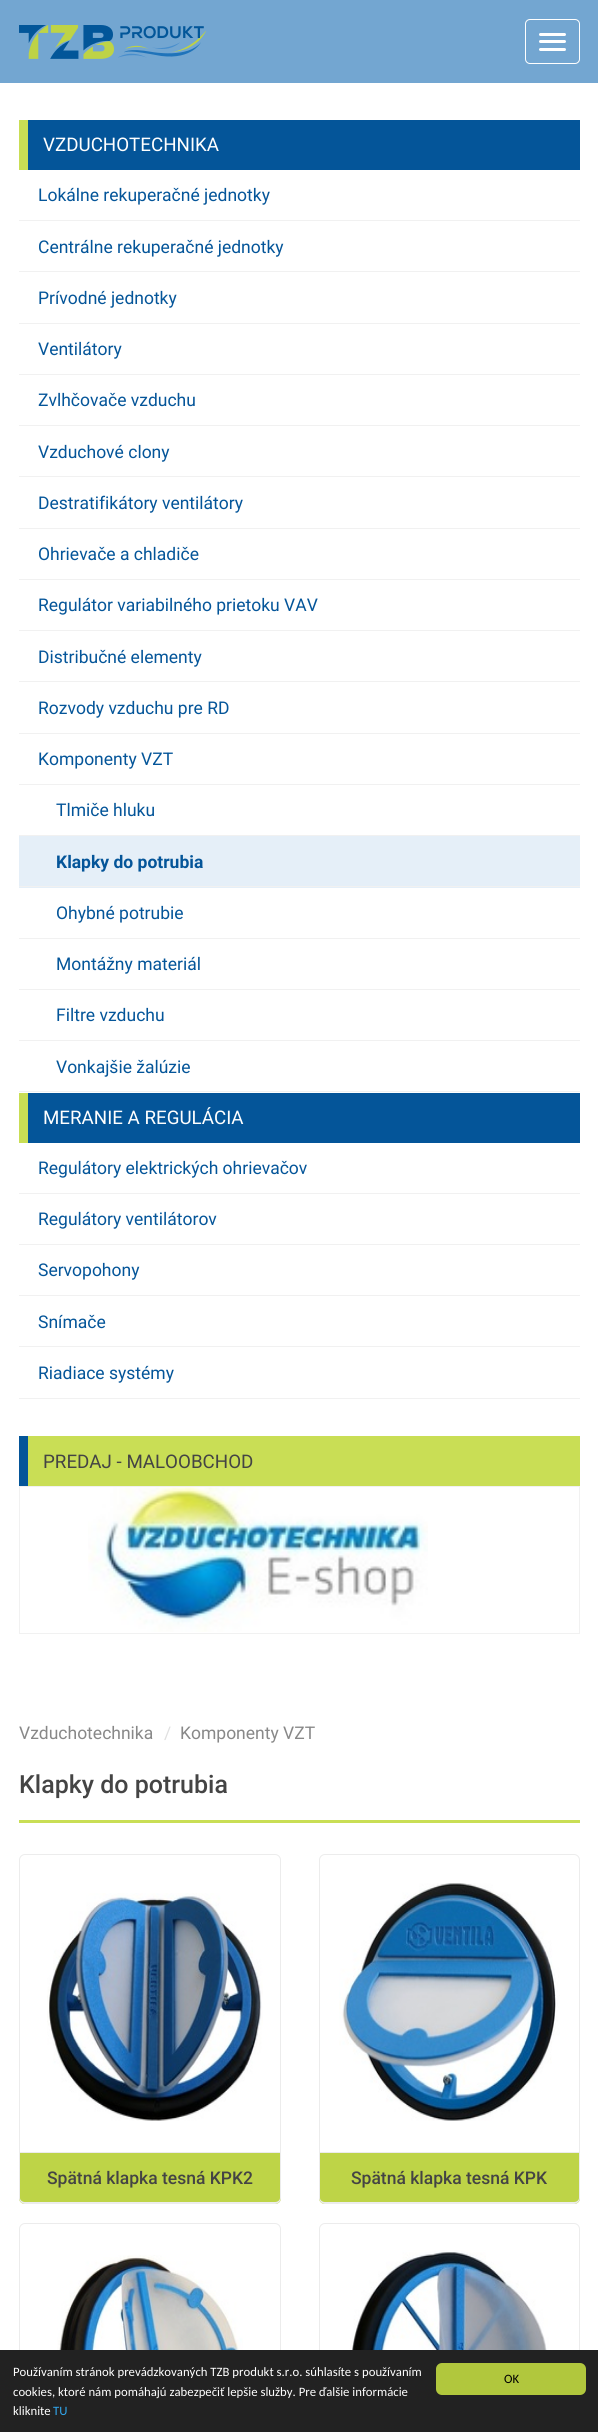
import math
import cairo

surface = cairo.ImageSurface(cairo.FORMAT_RGB24, 598, 2432)
ctx = cairo.Context(surface)
options = cairo.FontOptions()
options.set_hint_metrics(cairo.HINT_METRICS_OFF)
options.set_hint_style(cairo.HINT_STYLE_NONE)
ctx.set_font_options(options)
ctx.set_miter_limit(4)


def round_rect(x, y, w, h, r):
    ctx.new_sub_path()
    for i, (u, v) in enumerate([(x + w - r, y + h - r), (x + r, y + h - r), (x + r, y + r), (x + w - r, y + r)]):
        ctx.arc(u, v, r, i * math.pi / 2, (i + 1) * math.pi / 2)
    ctx.close_path()


def picture(path, x, y, w, h):
    ctx.save()
    ctx.set_source_surface(cairo.ImageSurface.create_from_png(path), x, y)
    ctx.rectangle(x, y, w, h)
    ctx.fill()
    ctx.restore()


ctx.set_source_rgb(1, 1, 1)
ctx.paint()
ctx.set_source_rgb(0.451, 0.651, 0.82)
ctx.rectangle(0, 0, 598, 83)
ctx.fill()
picture("img1.png", 19, 25, 187, 34)
round_rect(525.5, 19.5, 54, 44, 4.5)
ctx.set_source_rgb(1, 1, 1)
ctx.set_line_width(1)
ctx.stroke()
round_rect(539, 33, 27, 3, 1.5)
ctx.fill()
round_rect(539, 40, 27, 3, 1.5)
ctx.fill()
round_rect(539, 48, 27, 3, 1.5)
ctx.fill()
ctx.set_source_rgb(0.016, 0.333, 0.6)
ctx.rectangle(28, 120, 552, 50)
ctx.fill()
ctx.set_source_rgb(0.788, 0.871, 0.333)
ctx.rectangle(19, 120, 9, 50)
ctx.fill()
ctx.select_font_face("Roboto")
ctx.set_font_size(18.75)
ctx.set_source_rgb(1, 1, 1)
ctx.move_to(43, 151)
ctx.show_text("VZDUCHOTECHNIKA")
ctx.set_source_rgb(0.945, 0.945, 0.945)
ctx.rectangle(19, 220, 561, 1)
ctx.fill()
ctx.set_font_size(17.5)
ctx.set_source_rgb(0.016, 0.333, 0.6)
ctx.move_to(38, 201)
ctx.show_text("Lokálne rekuperačné jednotky")
ctx.set_source_rgb(0.945, 0.945, 0.945)
ctx.rectangle(19, 271, 561, 1)
ctx.fill()
ctx.set_source_rgb(0.016, 0.333, 0.6)
ctx.move_to(38, 253)
ctx.show_text("Centrálne rekuperačné jednotky")
ctx.set_source_rgb(0.945, 0.945, 0.945)
ctx.rectangle(19, 323, 561, 1)
ctx.fill()
ctx.set_source_rgb(0.016, 0.333, 0.6)
ctx.move_to(38, 304)
ctx.show_text("Prívodné jednotky")
ctx.set_source_rgb(0.945, 0.945, 0.945)
ctx.rectangle(19, 374, 561, 1)
ctx.fill()
ctx.set_source_rgb(0.016, 0.333, 0.6)
ctx.move_to(38, 355)
ctx.show_text("Ventilátory")
ctx.set_source_rgb(0.945, 0.945, 0.945)
ctx.rectangle(19, 425, 561, 1)
ctx.fill()
ctx.set_source_rgb(0.016, 0.333, 0.6)
ctx.move_to(38, 406)
ctx.show_text("Zvlhčovače vzduchu")
ctx.set_source_rgb(0.945, 0.945, 0.945)
ctx.rectangle(19, 476, 561, 1)
ctx.fill()
ctx.set_source_rgb(0.016, 0.333, 0.6)
ctx.move_to(38, 458)
ctx.show_text("Vzduchové clony")
ctx.set_source_rgb(0.945, 0.945, 0.945)
ctx.rectangle(19, 528, 561, 1)
ctx.fill()
ctx.set_source_rgb(0.016, 0.333, 0.6)
ctx.move_to(38, 509)
ctx.show_text("Destratifikátory ventilátory")
ctx.set_source_rgb(0.945, 0.945, 0.945)
ctx.rectangle(19, 579, 561, 1)
ctx.fill()
ctx.set_source_rgb(0.016, 0.333, 0.6)
ctx.move_to(38, 560)
ctx.show_text("Ohrievače a chladiče")
ctx.set_source_rgb(0.945, 0.945, 0.945)
ctx.rectangle(19, 630, 561, 1)
ctx.fill()
ctx.set_source_rgb(0.016, 0.333, 0.6)
ctx.move_to(38, 611)
ctx.show_text("Regulátor variabilného prietoku VAV")
ctx.set_source_rgb(0.945, 0.945, 0.945)
ctx.rectangle(19, 681, 561, 1)
ctx.fill()
ctx.set_source_rgb(0.016, 0.333, 0.6)
ctx.move_to(38, 663)
ctx.show_text("Distribučné elementy")
ctx.set_source_rgb(0.945, 0.945, 0.945)
ctx.rectangle(19, 733, 561, 1)
ctx.fill()
ctx.set_source_rgb(0.016, 0.333, 0.6)
ctx.move_to(38, 714)
ctx.show_text("Rozvody vzduchu pre RD")
ctx.set_source_rgb(0.945, 0.945, 0.945)
ctx.rectangle(19, 784, 561, 1)
ctx.fill()
ctx.set_source_rgb(0.016, 0.333, 0.6)
ctx.move_to(38, 765)
ctx.show_text("Komponenty VZT")
ctx.set_source_rgb(0.945, 0.945, 0.945)
ctx.rectangle(19, 835, 561, 1)
ctx.fill()
ctx.set_source_rgb(0.016, 0.333, 0.6)
ctx.move_to(56, 816)
ctx.show_text("Tlmiče hluku")
ctx.set_source_rgb(0.898, 0.937, 0.969)
ctx.rectangle(19, 836, 561, 52)
ctx.fill()
ctx.set_source_rgb(0.945, 0.945, 0.945)
ctx.rectangle(19, 886, 561, 1)
ctx.fill()
ctx.select_font_face("Roboto", cairo.FONT_SLANT_NORMAL, cairo.FONT_WEIGHT_BOLD)
ctx.set_source_rgb(0.016, 0.333, 0.6)
ctx.move_to(56, 868)
ctx.show_text("Klapky do potrubia")
ctx.set_source_rgb(0.945, 0.945, 0.945)
ctx.rectangle(19, 938, 561, 1)
ctx.fill()
ctx.select_font_face("Roboto")
ctx.set_source_rgb(0.016, 0.333, 0.6)
ctx.move_to(56, 919)
ctx.show_text("Ohybné potrubie")
ctx.set_source_rgb(0.945, 0.945, 0.945)
ctx.rectangle(19, 989, 561, 1)
ctx.fill()
ctx.set_source_rgb(0.016, 0.333, 0.6)
ctx.move_to(56, 970)
ctx.show_text("Montážny materiál")
ctx.set_source_rgb(0.945, 0.945, 0.945)
ctx.rectangle(19, 1040, 561, 1)
ctx.fill()
ctx.set_source_rgb(0.016, 0.333, 0.6)
ctx.move_to(56, 1021)
ctx.show_text("Filtre vzduchu")
ctx.set_source_rgb(0.945, 0.945, 0.945)
ctx.rectangle(19, 1091, 561, 1)
ctx.fill()
ctx.set_source_rgb(0.016, 0.333, 0.6)
ctx.move_to(56, 1073)
ctx.show_text("Vonkajšie žalúzie")
ctx.rectangle(28, 1093, 552, 50)
ctx.fill()
ctx.set_source_rgb(0.788, 0.871, 0.333)
ctx.rectangle(19, 1093, 9, 50)
ctx.fill()
ctx.set_font_size(18.75)
ctx.set_source_rgb(1, 1, 1)
ctx.move_to(43, 1124)
ctx.show_text("MERANIE A REGULÁCIA")
ctx.set_source_rgb(0.945, 0.945, 0.945)
ctx.rectangle(19, 1193, 561, 1)
ctx.fill()
ctx.set_font_size(17.5)
ctx.set_source_rgb(0.016, 0.333, 0.6)
ctx.move_to(38, 1174)
ctx.show_text("Regulátory elektrických ohrievačov")
ctx.set_source_rgb(0.945, 0.945, 0.945)
ctx.rectangle(19, 1244, 561, 1)
ctx.fill()
ctx.set_source_rgb(0.016, 0.333, 0.6)
ctx.move_to(38, 1225)
ctx.show_text("Regulátory ventilátorov")
ctx.set_source_rgb(0.945, 0.945, 0.945)
ctx.rectangle(19, 1295, 561, 1)
ctx.fill()
ctx.set_source_rgb(0.016, 0.333, 0.6)
ctx.move_to(38, 1276)
ctx.show_text("Servopohony")
ctx.set_source_rgb(0.945, 0.945, 0.945)
ctx.rectangle(19, 1346, 561, 1)
ctx.fill()
ctx.set_source_rgb(0.016, 0.333, 0.6)
ctx.move_to(38, 1328)
ctx.show_text("Snímače")
ctx.set_source_rgb(0.945, 0.945, 0.945)
ctx.rectangle(19, 1398, 561, 1)
ctx.fill()
ctx.set_source_rgb(0.016, 0.333, 0.6)
ctx.move_to(38, 1379)
ctx.show_text("Riadiace systémy")
ctx.set_source_rgb(0.788, 0.871, 0.333)
ctx.rectangle(28, 1436, 552, 50)
ctx.fill()
ctx.set_source_rgb(0.016, 0.333, 0.6)
ctx.rectangle(19, 1436, 9, 50)
ctx.fill()
ctx.set_font_size(18.75)
ctx.set_source_rgb(0.267, 0.267, 0.267)
ctx.move_to(43, 1468)
ctx.show_text("PREDAJ - MALOOBCHOD")
ctx.rectangle(19.5, 1486.5, 560, 147)
ctx.set_source_rgb(0.945, 0.945, 0.945)
ctx.stroke()
picture("img2.png", 88, 1487, 340, 145)
ctx.set_font_size(17.5)
ctx.set_source_rgb(0.533, 0.533, 0.533)
ctx.move_to(19, 1739)
ctx.show_text("Vzduchotechnika")
ctx.set_source_rgb(0.878, 0.878, 0.878)
ctx.move_to(164, 1739)
ctx.show_text("/")
ctx.set_source_rgb(0.533, 0.533, 0.533)
ctx.move_to(180, 1739)
ctx.show_text("Komponenty VZT")
ctx.select_font_face("Roboto Medium")
ctx.set_font_size(25)
ctx.set_source_rgb(0.267, 0.267, 0.267)
ctx.move_to(19, 1793)
ctx.show_text("Klapky do potrubia")
ctx.set_source_rgb(0.788, 0.871, 0.333)
ctx.rectangle(19, 1820, 561, 3)
ctx.fill()
ctx.set_source_rgb(0.745, 0.831, 0.278)
ctx.new_path()
ctx.move_to(19, 2153)
ctx.line_to(281, 2153)
ctx.line_to(281, 2198)
ctx.curve_to(281, 2201.5, 278.5, 2204, 275, 2204)
ctx.line_to(25, 2204)
ctx.curve_to(21.5, 2204, 19, 2201.5, 19, 2198)
ctx.close_path()
ctx.fill()
ctx.set_source_rgb(0.925, 0.925, 0.925)
ctx.set_fill_rule(cairo.FILL_RULE_EVEN_ODD)
ctx.new_path()
ctx.move_to(19, 2152)
ctx.line_to(281, 2152)
ctx.line_to(281, 2198)
ctx.curve_to(281, 2201, 278, 2204, 275, 2204)
ctx.line_to(25, 2204)
ctx.curve_to(22, 2204, 19, 2201, 19, 2198)
ctx.close_path()
ctx.move_to(20, 2152)
ctx.line_to(280, 2152)
ctx.line_to(280, 2198)
ctx.curve_to(280, 2200, 278, 2202, 275, 2202)
ctx.line_to(25, 2202)
ctx.curve_to(22, 2202, 20, 2200, 20, 2198)
ctx.close_path()
ctx.fill()
ctx.new_path()
ctx.move_to(25, 1854.5)
ctx.line_to(275, 1854.5)
ctx.curve_to(278, 1854.5, 280.5, 1857, 280.5, 1860)
ctx.line_to(280.5, 2152.5)
ctx.line_to(19.5, 2152.5)
ctx.line_to(19.5, 1860)
ctx.curve_to(19.5, 1857, 22, 1854.5, 25, 1854.5)
ctx.close_path()
ctx.stroke()
picture("img3.png", 47, 1893, 216, 228)
ctx.set_font_size(17.5)
ctx.set_source_rgb(0.267, 0.267, 0.267)
ctx.move_to(47, 2184)
ctx.show_text("Spätná klapka tesná KPK2")
ctx.set_source_rgb(0.745, 0.831, 0.278)
ctx.new_path()
ctx.move_to(319, 2153)
ctx.line_to(580, 2153)
ctx.line_to(580, 2198)
ctx.curve_to(580, 2201.5, 577.5, 2204, 574, 2204)
ctx.line_to(325, 2204)
ctx.curve_to(321.5, 2204, 319, 2201.5, 319, 2198)
ctx.close_path()
ctx.fill()
ctx.set_source_rgb(0.925, 0.925, 0.925)
ctx.new_path()
ctx.move_to(319, 2152)
ctx.line_to(580, 2152)
ctx.line_to(580, 2198)
ctx.curve_to(580, 2201, 577, 2204, 574, 2204)
ctx.line_to(325, 2204)
ctx.curve_to(322, 2204, 319, 2201, 319, 2198)
ctx.close_path()
ctx.move_to(320, 2152)
ctx.line_to(579, 2152)
ctx.line_to(579, 2198)
ctx.curve_to(579, 2200, 577, 2202, 574, 2202)
ctx.line_to(325, 2202)
ctx.curve_to(322, 2202, 320, 2200, 320, 2198)
ctx.close_path()
ctx.fill()
ctx.new_path()
ctx.move_to(325, 1854.5)
ctx.line_to(574, 1854.5)
ctx.curve_to(577, 1854.5, 579.5, 1857, 579.5, 1860)
ctx.line_to(579.5, 2152.5)
ctx.line_to(319.5, 2152.5)
ctx.line_to(319.5, 1860)
ctx.curve_to(319.5, 1857, 322, 1854.5, 325, 1854.5)
ctx.close_path()
ctx.stroke()
picture("img4.png", 339, 1883, 221, 238)
ctx.set_source_rgb(0.267, 0.267, 0.267)
ctx.move_to(351, 2184)
ctx.show_text("Spätná klapka tesná KPK")
ctx.new_path()
ctx.move_to(25, 2223.5)
ctx.line_to(275, 2223.5)
ctx.curve_to(278, 2223.5, 280.5, 2226, 280.5, 2229)
ctx.line_to(280.5, 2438.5)
ctx.line_to(19.5, 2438.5)
ctx.line_to(19.5, 2229)
ctx.curve_to(19.5, 2226, 22, 2223.5, 25, 2223.5)
ctx.close_path()
ctx.set_source_rgb(0.925, 0.925, 0.925)
ctx.stroke()
picture("img5.png", 57, 2255, 186, 95)
ctx.new_path()
ctx.move_to(325, 2223.5)
ctx.line_to(574, 2223.5)
ctx.curve_to(577, 2223.5, 579.5, 2226, 579.5, 2229)
ctx.line_to(579.5, 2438.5)
ctx.line_to(319.5, 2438.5)
ctx.line_to(319.5, 2229)
ctx.curve_to(319.5, 2226, 322, 2223.5, 325, 2223.5)
ctx.close_path()
ctx.stroke()
picture("img6.png", 349, 2250, 200, 100)
ctx.set_source_rgb(0.133, 0.133, 0.133)
ctx.rectangle(0, 2350, 598, 82)
ctx.fill()
ctx.select_font_face("Carlito")
ctx.set_font_size(12.75)
ctx.set_source_rgb(1, 1, 1)
ctx.move_to(13, 2376)
ctx.show_text("Používaním stránok prevádzkovaných TZB produkt s.r.o. súhlasíte s používaním")
ctx.move_to(13, 2396)
ctx.show_text("cookies, ktoré nám pomáhajú zabezpečiť lepšie služby. Pre ďalšie informácie")
ctx.move_to(13, 2415)
ctx.show_text("kliknite")
ctx.set_source_rgb(0.192, 0.659, 0.941)
ctx.move_to(53, 2415)
ctx.show_text("TU")
ctx.set_source_rgb(0.694, 0.78, 0.239)
round_rect(436, 2363, 150, 32, 6)
ctx.fill()
ctx.set_source_rgb(0, 0, 0)
ctx.move_to(504, 2383)
ctx.show_text("OK")
surface.write_to_png("page.png")
